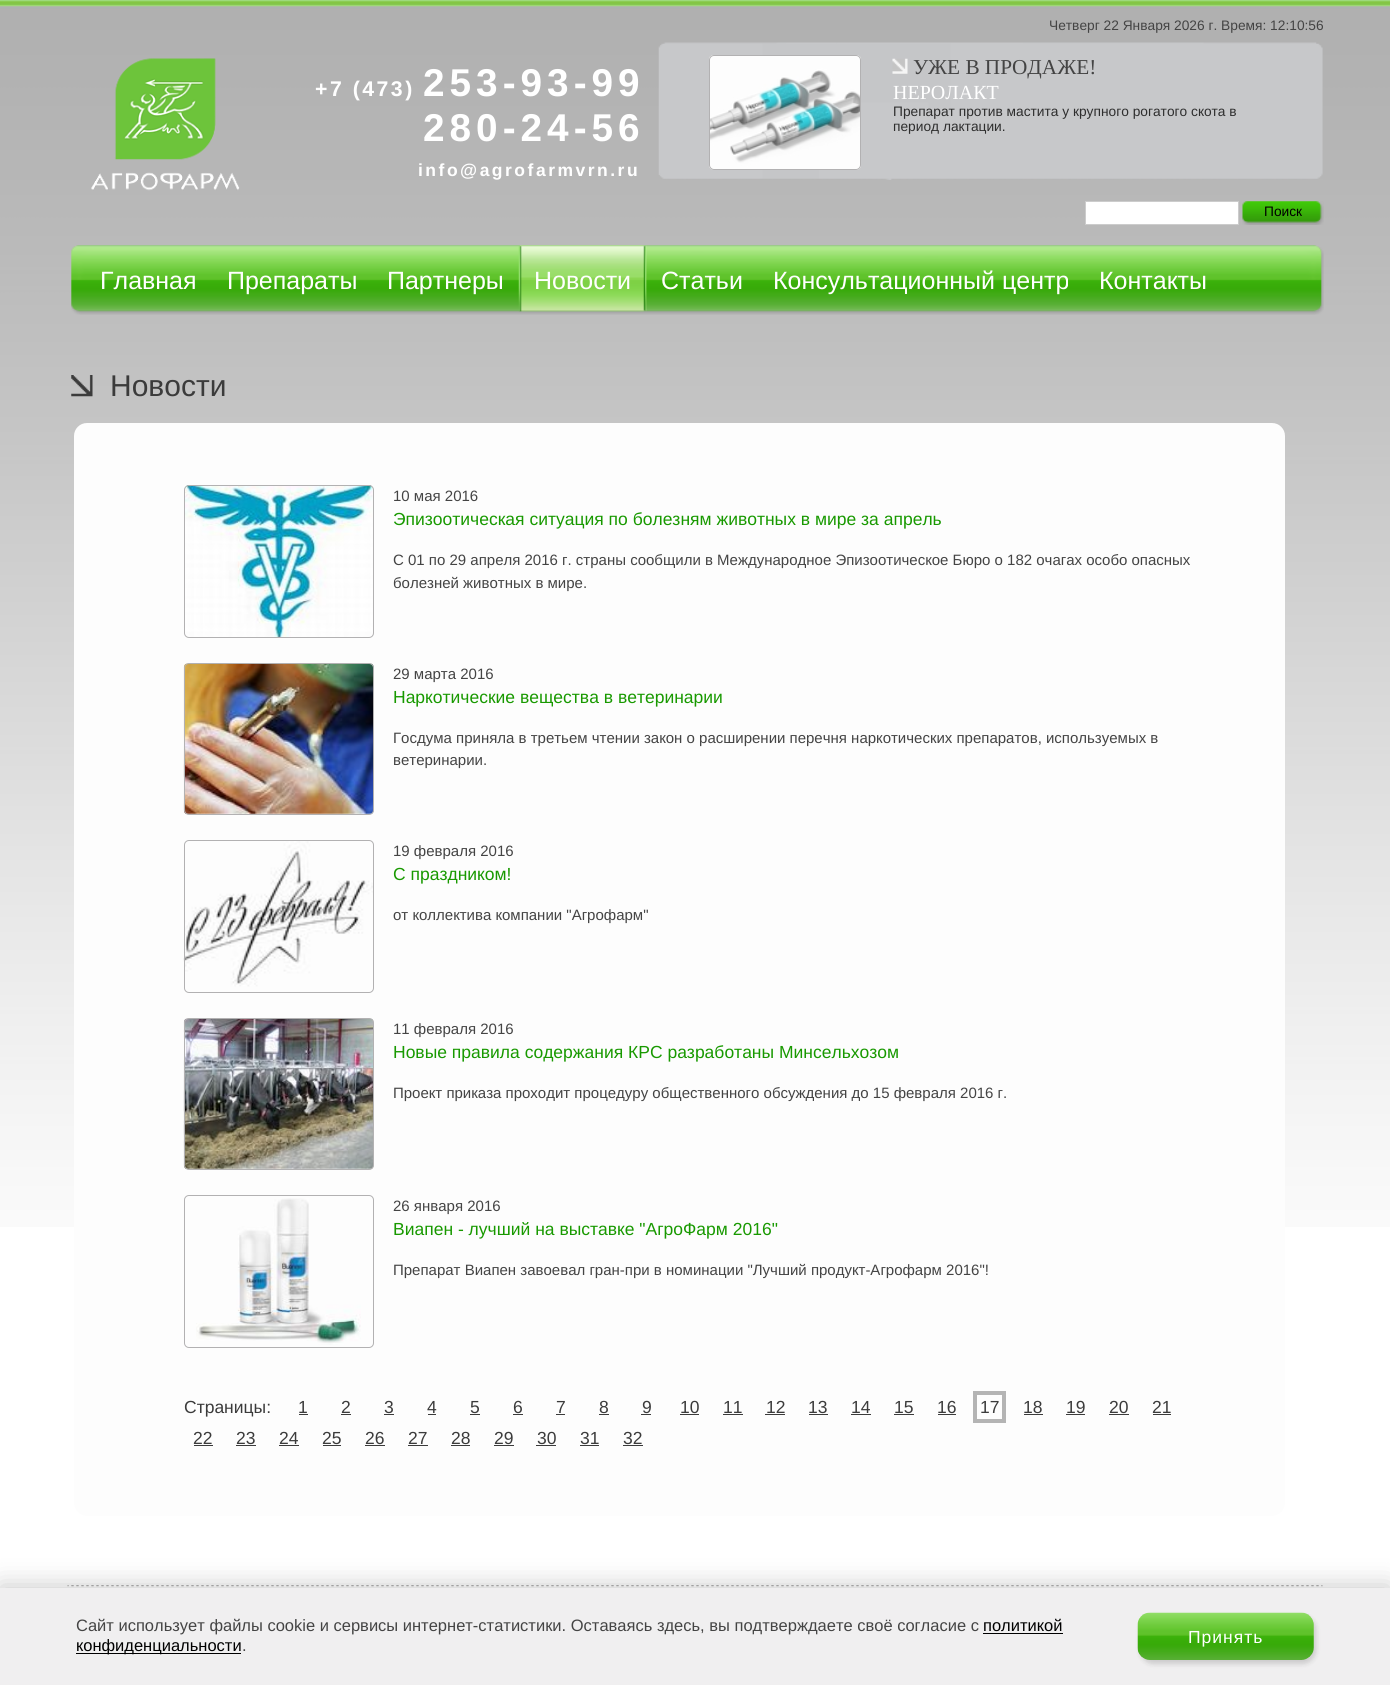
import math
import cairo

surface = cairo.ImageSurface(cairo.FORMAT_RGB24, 1390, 1685)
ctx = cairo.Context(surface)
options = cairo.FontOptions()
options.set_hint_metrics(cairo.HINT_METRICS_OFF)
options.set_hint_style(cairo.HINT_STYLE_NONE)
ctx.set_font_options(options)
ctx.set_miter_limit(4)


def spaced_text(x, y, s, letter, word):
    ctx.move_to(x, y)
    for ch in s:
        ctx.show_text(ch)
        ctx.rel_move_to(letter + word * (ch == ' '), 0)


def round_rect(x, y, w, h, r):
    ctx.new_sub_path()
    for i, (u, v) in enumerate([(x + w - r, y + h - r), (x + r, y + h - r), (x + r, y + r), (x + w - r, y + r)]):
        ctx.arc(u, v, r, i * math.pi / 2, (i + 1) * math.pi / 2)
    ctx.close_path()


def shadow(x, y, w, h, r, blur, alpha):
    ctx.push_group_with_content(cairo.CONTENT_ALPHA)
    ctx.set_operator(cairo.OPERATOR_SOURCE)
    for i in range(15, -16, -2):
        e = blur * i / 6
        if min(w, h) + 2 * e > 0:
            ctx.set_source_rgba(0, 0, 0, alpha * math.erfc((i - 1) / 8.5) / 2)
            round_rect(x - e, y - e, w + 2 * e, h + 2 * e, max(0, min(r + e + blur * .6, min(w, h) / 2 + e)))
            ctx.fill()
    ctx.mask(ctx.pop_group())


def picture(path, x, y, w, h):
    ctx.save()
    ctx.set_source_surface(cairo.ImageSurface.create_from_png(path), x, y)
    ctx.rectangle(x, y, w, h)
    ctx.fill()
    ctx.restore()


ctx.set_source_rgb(1, 1, 1)
ctx.paint()
picture("img1.png", 0, 0, 1390, 1227)
picture("img2.png", 91, 58, 149, 133)
ctx.select_font_face("Liberation Sans", cairo.FONT_SLANT_NORMAL, cairo.FONT_WEIGHT_BOLD)
ctx.set_font_size(21.25)
ctx.set_source_rgb(1, 1, 1)
spaced_text(315, 96, "+7 (473)", 2.5, 0)
ctx.set_font_size(38.75)
spaced_text(423, 96, "253-93-99", 5, 0)
spaced_text(423, 141, "280-24-56", 5, 0)
picture("img3.png", 658, 42, 665, 138)
ctx.select_font_face("Liberation Sans")
ctx.set_font_size(13.75)
ctx.set_source_rgb(0.267, 0.267, 0.267)
ctx.move_to(1049, 30)
ctx.show_text("Четверг 22 Января 2026 г. Время: 12:10:56")
picture("img4.png", 709, 55, 152, 115)
round_rect(709.5, 55.5, 151, 114, 4.5)
ctx.set_source_rgb(0.698, 0.694, 0.698)
ctx.set_line_width(1)
ctx.stroke()
picture("img5.png", 892, 58, 16, 16)
ctx.select_font_face("Liberation Serif")
ctx.set_font_size(21.25)
ctx.set_source_rgb(0.267, 0.267, 0.267)
ctx.move_to(913, 74)
ctx.show_text("УЖЕ В ПРОДАЖЕ!")
ctx.set_font_size(20)
ctx.set_source_rgb(1, 1, 1)
ctx.move_to(893, 99)
ctx.show_text("НЕРОЛАКТ")
ctx.select_font_face("Liberation Sans")
ctx.set_font_size(13.75)
ctx.set_source_rgb(0.18, 0.18, 0.18)
ctx.move_to(893, 116)
ctx.show_text("Препарат против мастита у крупного рогатого скота в")
ctx.move_to(893, 131)
ctx.show_text("период лактации.")
ctx.select_font_face("Liberation Sans", cairo.FONT_SLANT_NORMAL, cairo.FONT_WEIGHT_BOLD)
ctx.set_font_size(17.5)
ctx.set_source_rgb(1, 1, 1)
spaced_text(418, 176, "info@agrofarmvrn.ru", 2.5, 0)
ctx.rectangle(1085.5, 201.5, 153, 23)
ctx.fill_preserve()
ctx.set_source_rgb(0.8, 0.8, 0.8)
ctx.stroke()
picture("img6.png", 1242, 201, 82, 24)
ctx.select_font_face("Liberation Sans")
ctx.set_font_size(13.75)
ctx.set_source_rgb(0, 0, 0)
ctx.move_to(1264, 216)
ctx.show_text("Поиск")
picture("img7.png", 71, 245, 1253, 70)
ctx.set_font_size(25)
ctx.set_source_rgb(1, 1, 1)
ctx.move_to(100, 289)
ctx.show_text("Главная")
ctx.move_to(227, 289)
ctx.show_text("Препараты")
ctx.move_to(387, 289)
ctx.show_text("Партнеры")
picture("img8.png", 518, 245, 129, 67)
picture("img9.png", 643, 245, 4, 67)
ctx.move_to(534, 289)
ctx.show_text("Новости")
ctx.move_to(661, 289)
ctx.show_text("Статьи")
ctx.move_to(773, 289)
ctx.show_text("Консультационный центр")
ctx.move_to(1099, 289)
ctx.show_text("Контакты")
picture("img10.png", 71, 375, 22, 22)
ctx.set_font_size(30)
ctx.set_source_rgb(0.231, 0.231, 0.231)
ctx.move_to(110, 396)
ctx.show_text("Новости")
ctx.set_source_rgb(0.992, 0.992, 0.992)
round_rect(74, 423, 1211, 1093, 13)
ctx.fill()
picture("img11.png", 185, 485, 188, 153)
round_rect(184.5, 485.5, 189, 152, 4.5)
ctx.set_source_rgb(0.698, 0.694, 0.698)
ctx.stroke()
ctx.set_font_size(15)
ctx.set_source_rgb(0.267, 0.267, 0.267)
ctx.move_to(393, 501)
ctx.show_text("10 мая 2016")
ctx.set_font_size(17.5)
ctx.set_source_rgb(0.094, 0.6, 0)
ctx.move_to(393, 525)
ctx.show_text("Эпизоотическая ситуация по болезням животных в мире за апрель")
ctx.set_font_size(15)
ctx.set_source_rgb(0.267, 0.267, 0.267)
ctx.move_to(393, 565)
ctx.show_text("С 01 по 29 апреля 2016 г. страны сообщили в Международное Эпизоотическое Бюро о 182 очагах особо опасных")
ctx.move_to(393, 588)
ctx.show_text("болезней животных в мире.")
picture("img12.png", 183, 663, 191, 151)
round_rect(184.5, 663.5, 189, 151, 4.5)
ctx.set_source_rgb(0.698, 0.694, 0.698)
ctx.stroke()
ctx.set_source_rgb(0.267, 0.267, 0.267)
ctx.move_to(393, 679)
ctx.show_text("29 марта 2016")
ctx.set_font_size(17.5)
ctx.set_source_rgb(0.094, 0.6, 0)
ctx.move_to(393, 703)
ctx.show_text("Наркотические вещества в ветеринарии")
ctx.set_font_size(15)
ctx.set_source_rgb(0.267, 0.267, 0.267)
ctx.move_to(393, 743)
ctx.show_text("Госдума приняла в третьем чтении закон о расширении перечня наркотических препаратов, используемых в")
ctx.move_to(393, 765)
ctx.show_text("ветеринарии.")
picture("img13.png", 183, 841, 191, 146)
round_rect(184.5, 840.5, 189, 152, 4.5)
ctx.set_source_rgb(0.698, 0.694, 0.698)
ctx.stroke()
ctx.set_source_rgb(0.267, 0.267, 0.267)
ctx.move_to(393, 856)
ctx.show_text("19 февраля 2016")
ctx.set_font_size(17.5)
ctx.set_source_rgb(0.094, 0.6, 0)
ctx.move_to(393, 880)
ctx.show_text("С праздником!")
ctx.set_font_size(15)
ctx.set_source_rgb(0.267, 0.267, 0.267)
ctx.move_to(393, 920)
ctx.show_text("от коллектива компании \"Агрофарм\"")
picture("img14.png", 183, 1018, 191, 151)
round_rect(184.5, 1018.5, 189, 151, 4.5)
ctx.set_source_rgb(0.698, 0.694, 0.698)
ctx.stroke()
ctx.set_source_rgb(0.267, 0.267, 0.267)
ctx.move_to(393, 1034)
ctx.show_text("11 февраля 2016")
ctx.set_font_size(17.5)
ctx.set_source_rgb(0.094, 0.6, 0)
ctx.move_to(393, 1058)
ctx.show_text("Новые правила содержания КРС разработаны Минсельхозом")
ctx.set_font_size(15)
ctx.set_source_rgb(0.267, 0.267, 0.267)
ctx.move_to(393, 1098)
ctx.show_text("Проект приказа проходит процедуру общественного обсуждения до 15 февраля 2016 г.")
picture("img15.png", 196, 1198, 165, 147)
round_rect(184.5, 1195.5, 189, 152, 4.5)
ctx.set_source_rgb(0.698, 0.694, 0.698)
ctx.stroke()
ctx.set_source_rgb(0.267, 0.267, 0.267)
ctx.move_to(393, 1211)
ctx.show_text("26 января 2016")
ctx.set_font_size(17.5)
ctx.set_source_rgb(0.094, 0.6, 0)
ctx.move_to(393, 1235)
ctx.show_text("Виапен - лучший на выставке \"АгроФарм 2016\"")
ctx.set_font_size(15)
ctx.set_source_rgb(0.267, 0.267, 0.267)
ctx.move_to(393, 1275)
ctx.show_text("Препарат Виапен завоевал гран-при в номинации \"Лучший продукт-Агрофарм 2016\"!")
ctx.set_font_size(17.5)
ctx.set_source_rgb(0.231, 0.231, 0.231)
ctx.move_to(184, 1413)
ctx.show_text("Страницы:")
ctx.move_to(298, 1413)
ctx.show_text("1")
ctx.rectangle(299, 1414, 9, 1)
ctx.fill()
ctx.move_to(341, 1413)
ctx.show_text("2")
ctx.rectangle(341, 1414, 10, 1)
ctx.fill()
ctx.move_to(384, 1413)
ctx.show_text("3")
ctx.rectangle(384, 1414, 10, 1)
ctx.fill()
ctx.move_to(427, 1413)
ctx.show_text("4")
ctx.rectangle(428, 1414, 8, 1)
ctx.fill()
ctx.move_to(470, 1413)
ctx.show_text("5")
ctx.rectangle(470, 1414, 10, 1)
ctx.fill()
ctx.move_to(513, 1413)
ctx.show_text("6")
ctx.rectangle(513, 1414, 10, 1)
ctx.fill()
ctx.move_to(556, 1413)
ctx.show_text("7")
ctx.rectangle(556, 1414, 9, 1)
ctx.fill()
ctx.move_to(599, 1413)
ctx.show_text("8")
ctx.rectangle(599, 1414, 10, 1)
ctx.fill()
ctx.move_to(642, 1413)
ctx.show_text("9")
ctx.rectangle(641, 1414, 10, 1)
ctx.fill()
ctx.move_to(680, 1413)
ctx.show_text("10")
ctx.rectangle(680, 1414, 19, 1)
ctx.fill()
ctx.move_to(723, 1413)
ctx.show_text("11")
ctx.rectangle(723, 1414, 20, 1)
ctx.fill()
ctx.move_to(766, 1413)
ctx.show_text("12")
ctx.rectangle(765, 1414, 20, 1)
ctx.fill()
ctx.move_to(808, 1413)
ctx.show_text("13")
ctx.rectangle(809, 1414, 19, 1)
ctx.fill()
ctx.move_to(851, 1413)
ctx.show_text("14")
ctx.rectangle(851, 1414, 20, 1)
ctx.fill()
ctx.move_to(894, 1413)
ctx.show_text("15")
ctx.rectangle(894, 1414, 20, 1)
ctx.fill()
ctx.move_to(937, 1413)
ctx.show_text("16")
ctx.rectangle(938, 1414, 18, 1)
ctx.fill()
ctx.rectangle(975, 1393, 29, 28)
ctx.set_source_rgb(0.706, 0.706, 0.706)
ctx.set_line_width(4)
ctx.stroke()
ctx.set_source_rgb(0.231, 0.231, 0.231)
ctx.move_to(980, 1413)
ctx.show_text("17")
ctx.move_to(1023, 1413)
ctx.show_text("18")
ctx.rectangle(1024, 1414, 19, 1)
ctx.fill()
ctx.move_to(1066, 1413)
ctx.show_text("19")
ctx.rectangle(1066, 1414, 19, 1)
ctx.fill()
ctx.move_to(1109, 1413)
ctx.show_text("20")
ctx.rectangle(1109, 1414, 20, 1)
ctx.fill()
ctx.move_to(1152, 1413)
ctx.show_text("21")
ctx.rectangle(1153, 1414, 18, 1)
ctx.fill()
ctx.move_to(193, 1444)
ctx.show_text("22")
ctx.rectangle(194, 1445, 19, 1)
ctx.fill()
ctx.move_to(236, 1444)
ctx.show_text("23")
ctx.rectangle(236, 1445, 20, 1)
ctx.fill()
ctx.move_to(279, 1444)
ctx.show_text("24")
ctx.rectangle(279, 1445, 20, 1)
ctx.fill()
ctx.move_to(322, 1444)
ctx.show_text("25")
ctx.rectangle(323, 1445, 18, 1)
ctx.fill()
ctx.move_to(365, 1444)
ctx.show_text("26")
ctx.rectangle(365, 1445, 20, 1)
ctx.fill()
ctx.move_to(408, 1444)
ctx.show_text("27")
ctx.rectangle(408, 1445, 20, 1)
ctx.fill()
ctx.move_to(451, 1444)
ctx.show_text("28")
ctx.rectangle(451, 1445, 19, 1)
ctx.fill()
ctx.move_to(494, 1444)
ctx.show_text("29")
ctx.rectangle(494, 1445, 20, 1)
ctx.fill()
ctx.move_to(537, 1444)
ctx.show_text("30")
ctx.rectangle(536, 1445, 20, 1)
ctx.fill()
ctx.move_to(580, 1444)
ctx.show_text("31")
ctx.rectangle(580, 1445, 19, 1)
ctx.fill()
ctx.move_to(623, 1444)
ctx.show_text("32")
ctx.rectangle(623, 1445, 20, 1)
ctx.fill()
picture("img16.png", 67, 1585, 1256, 2)
ctx.set_source_rgb(0, 0, 0)
shadow(0, 1585, 1390, 98, 0, 12.5, 0.2)
ctx.set_source_rgb(0.941, 0.937, 0.941)
ctx.rectangle(0, 1588, 1390, 97)
ctx.fill()
ctx.set_font_size(16.5)
ctx.set_source_rgb(0.267, 0.267, 0.267)
ctx.move_to(76, 1631)
ctx.show_text("Сайт использует файлы cookie и сервисы интернет-статистики. Оставаясь здесь, вы подтверждаете своё согласие с")
ctx.set_source_rgb(0, 0, 0)
ctx.move_to(983, 1631)
ctx.show_text("политикой")
ctx.rectangle(983, 1633, 80, 1)
ctx.fill()
ctx.rectangle(76, 1653, 165, 1)
ctx.fill()
ctx.move_to(76, 1651)
ctx.show_text("конфиденциальности")
ctx.set_source_rgb(0.267, 0.267, 0.267)
ctx.move_to(242, 1651)
ctx.show_text(".")
ctx.set_source_rgb(0, 0, 0)
shadow(1140, 1616, 176, 48, 13, 2.5, 0.15)
picture("img17.png", 1137, 1612, 177, 48)
ctx.set_font_size(17.5)
ctx.set_source_rgb(1, 1, 1)
spaced_text(1188, 1643, "Принять", 1, 0)
surface.write_to_png("page.png")
